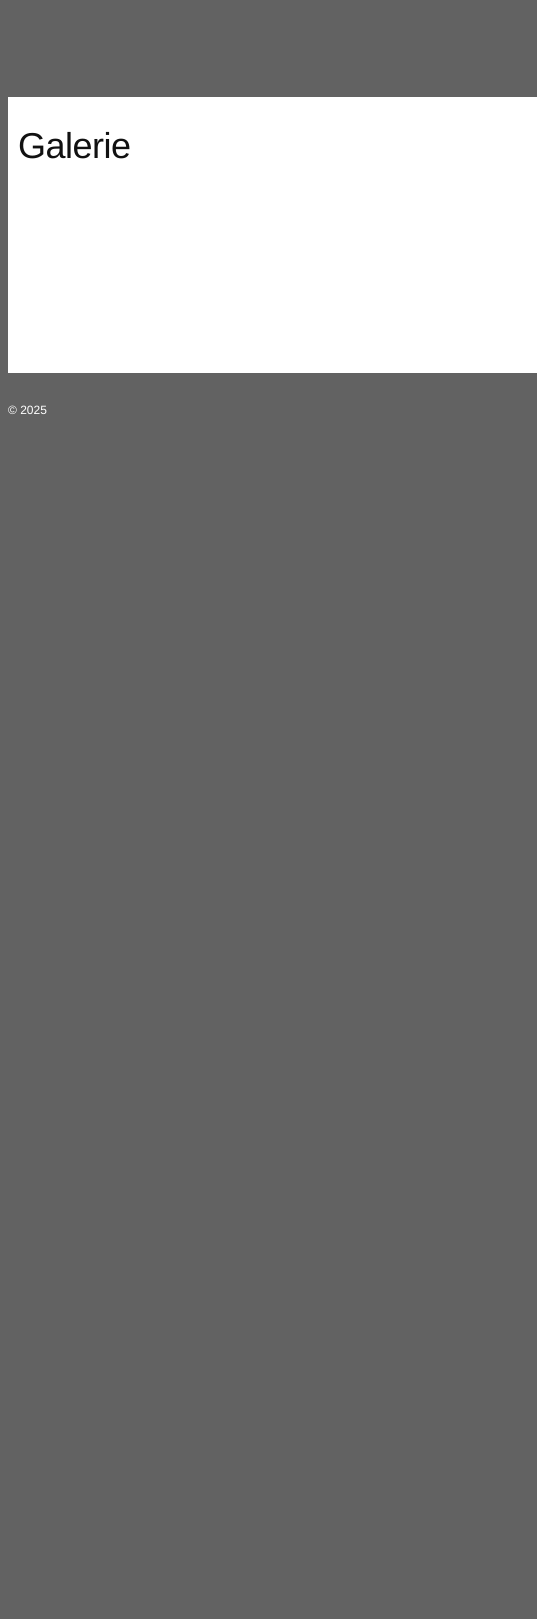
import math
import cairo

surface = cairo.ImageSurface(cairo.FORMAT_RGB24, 537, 1619)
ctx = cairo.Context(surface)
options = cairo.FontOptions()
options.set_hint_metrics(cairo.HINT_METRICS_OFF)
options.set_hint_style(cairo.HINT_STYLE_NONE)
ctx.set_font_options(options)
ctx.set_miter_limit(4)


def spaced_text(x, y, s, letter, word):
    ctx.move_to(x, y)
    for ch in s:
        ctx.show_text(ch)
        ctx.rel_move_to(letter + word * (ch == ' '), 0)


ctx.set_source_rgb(0.384, 0.384, 0.384)
ctx.paint()
ctx.set_source_rgb(1, 1, 1)
ctx.rectangle(8, 97, 529, 276)
ctx.fill()
ctx.select_font_face("Liberation Sans")
ctx.set_font_size(36)
ctx.set_source_rgb(0.067, 0.067, 0.067)
spaced_text(18, 158, "Galerie", -0.5, 0)
ctx.set_font_size(12)
ctx.set_source_rgb(1, 1, 1)
ctx.move_to(8, 414)
ctx.show_text("© 2025")
surface.write_to_png("page.png")
